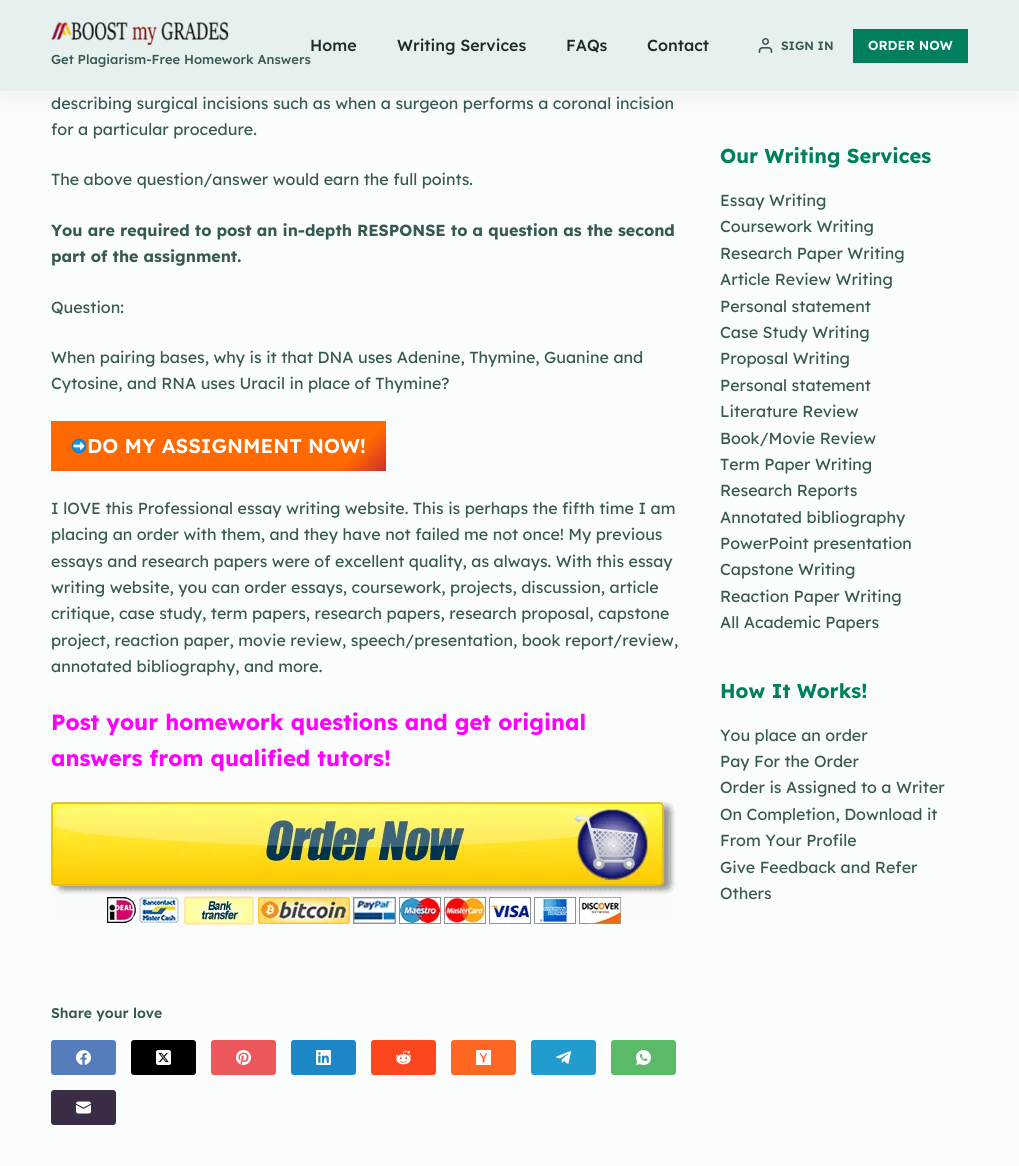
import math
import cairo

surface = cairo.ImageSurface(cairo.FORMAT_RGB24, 1019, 1166)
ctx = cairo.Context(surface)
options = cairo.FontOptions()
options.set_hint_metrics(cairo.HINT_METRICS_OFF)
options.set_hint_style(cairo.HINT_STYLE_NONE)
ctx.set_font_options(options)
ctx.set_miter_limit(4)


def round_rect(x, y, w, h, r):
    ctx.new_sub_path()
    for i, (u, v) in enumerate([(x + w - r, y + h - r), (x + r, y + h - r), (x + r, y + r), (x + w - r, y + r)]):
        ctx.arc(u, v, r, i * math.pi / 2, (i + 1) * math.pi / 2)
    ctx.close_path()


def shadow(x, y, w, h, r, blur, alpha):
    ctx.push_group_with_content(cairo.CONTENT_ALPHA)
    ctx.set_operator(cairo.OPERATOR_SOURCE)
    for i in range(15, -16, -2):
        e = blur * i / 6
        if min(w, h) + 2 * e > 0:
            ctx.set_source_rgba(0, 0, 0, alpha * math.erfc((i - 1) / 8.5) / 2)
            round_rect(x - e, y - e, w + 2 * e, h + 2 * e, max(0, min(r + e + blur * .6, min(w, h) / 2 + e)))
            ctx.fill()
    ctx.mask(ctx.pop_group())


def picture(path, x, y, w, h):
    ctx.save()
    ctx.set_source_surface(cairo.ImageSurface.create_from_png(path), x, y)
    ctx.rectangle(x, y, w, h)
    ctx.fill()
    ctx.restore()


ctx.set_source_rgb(0.984, 0.988, 0.988)
ctx.paint()
ctx.set_source_rgb(0.173, 0.243, 0.314)
shadow(0, 10, 1019, 91, 0, 10, 0.05)
ctx.set_source_rgb(0.902, 0.941, 0.933)
ctx.rectangle(0, 0, 1019, 91)
ctx.fill()
ctx.select_font_face("Lexend Medium")
ctx.set_font_size(16)
ctx.set_source_rgb(0.098, 0.173, 0.153)
ctx.move_to(310, 51)
ctx.show_text("Home")
ctx.move_to(397, 51)
ctx.show_text("Writing Services")
ctx.move_to(566, 51)
ctx.show_text("FAQs")
ctx.move_to(647, 51)
ctx.show_text("Contact")
picture("img1.png", 758, 38, 15, 15)
ctx.select_font_face("Lexend SemiBold")
ctx.set_font_size(12)
ctx.set_source_rgb(0.212, 0.349, 0.318)
ctx.move_to(781, 50)
ctx.show_text("SIGN IN")
ctx.set_source_rgb(0, 0.498, 0.373)
ctx.rectangle(853, 29, 115, 34)
ctx.fill()
ctx.set_font_size(13)
ctx.set_source_rgb(1, 1, 1)
ctx.move_to(868, 50)
ctx.show_text("ORDER NOW")
picture("img2.png", 51, 22, 178, 23)
ctx.select_font_face("Lexend Medium")
ctx.set_source_rgb(0.212, 0.349, 0.318)
ctx.move_to(51, 64)
ctx.show_text("Get Plagiarism-Free Homework Answers")
ctx.select_font_face("Lexend")
ctx.set_font_size(16)
ctx.move_to(51, 109)
ctx.show_text("describing surgical incisions such as when a surgeon performs a coronal incision")
ctx.move_to(51, 135)
ctx.show_text("for a particular procedure.")
ctx.move_to(51, 185)
ctx.show_text("The above question/answer would earn the full points.")
ctx.select_font_face("Lexend", cairo.FONT_SLANT_NORMAL, cairo.FONT_WEIGHT_BOLD)
ctx.move_to(51, 236)
ctx.show_text("You are required to post an in-depth RESPONSE to a question as the second")
ctx.move_to(51, 262)
ctx.show_text("part of the assignment.")
ctx.select_font_face("Lexend")
ctx.move_to(51, 313)
ctx.show_text("Question:")
ctx.move_to(51, 363)
ctx.show_text("When pairing bases, why is it that DNA uses Adenine, Thymine, Guanine and")
ctx.move_to(51, 389)
ctx.show_text("Cytosine, and RNA uses Uracil in place of Thymine?")
gradient = cairo.LinearGradient(122, 350, 315, 542)
gradient.add_color_stop_rgba(0.88, 1, 0.412, 0, 1)
gradient.add_color_stop_rgba(1, 0.812, 0.18, 0.18, 1)
ctx.set_source(gradient)
ctx.rectangle(51, 421, 335, 50)
ctx.fill()
picture("img3.png", 71, 438, 16, 16)
ctx.select_font_face("Lexend SemiBold")
ctx.set_font_size(20)
ctx.set_source_rgb(1, 1, 1)
ctx.move_to(87, 453)
ctx.show_text("DO MY ASSIGNMENT NOW!")
ctx.select_font_face("Lexend")
ctx.set_font_size(16)
ctx.set_source_rgb(0.212, 0.349, 0.318)
ctx.move_to(51, 514)
ctx.show_text("I lOVE this Professional essay writing website. This is perhaps the fifth time I am")
ctx.move_to(51, 540)
ctx.show_text("placing an order with them, and they have not failed me not once! My previous")
ctx.move_to(51, 567)
ctx.show_text("essays and research papers were of excellent quality, as always. With this essay")
ctx.move_to(51, 593)
ctx.show_text("writing website, you can order essays, coursework, projects, discussion, article")
ctx.move_to(51, 619)
ctx.show_text("critique, case study, term papers, research papers, research proposal, capstone")
ctx.move_to(51, 646)
ctx.show_text("project, reaction paper, movie review, speech/presentation, book report/review,")
ctx.move_to(51, 672)
ctx.show_text("annotated bibliography, and more.")
ctx.select_font_face("Lexend", cairo.FONT_SLANT_NORMAL, cairo.FONT_WEIGHT_BOLD)
ctx.set_font_size(22)
ctx.set_source_rgb(1, 0, 1)
ctx.move_to(51, 730)
ctx.show_text("Post your homework questions and get original")
ctx.move_to(51, 766)
ctx.show_text("answers from qualified tutors!")
picture("img4.png", 51, 801, 624, 124)
ctx.select_font_face("Lexend SemiBold")
ctx.set_font_size(14)
ctx.set_source_rgb(0.212, 0.349, 0.318)
ctx.move_to(51, 1018)
ctx.show_text("Share your love")
ctx.set_source_rgb(0.333, 0.49, 0.737)
round_rect(51, 1040, 65, 35, 3)
ctx.fill()
picture("img5.png", 76, 1050, 15, 15)
ctx.set_source_rgb(0, 0, 0)
round_rect(131, 1040, 65, 35, 3)
ctx.fill()
picture("img6.png", 156, 1050, 15, 15)
ctx.set_source_rgb(0.918, 0.341, 0.353)
round_rect(211, 1040, 65, 35, 3)
ctx.fill()
picture("img7.png", 236, 1050, 15, 15)
ctx.set_source_rgb(0.11, 0.525, 0.776)
round_rect(291, 1040, 65, 35, 3)
ctx.fill()
picture("img8.png", 316, 1050, 15, 15)
ctx.set_source_rgb(0.988, 0.278, 0.118)
round_rect(371, 1040, 65, 35, 3)
ctx.fill()
picture("img9.png", 396, 1050, 15, 15)
ctx.set_source_rgb(0.992, 0.404, 0.129)
round_rect(451, 1040, 65, 35, 3)
ctx.fill()
picture("img10.png", 476, 1050, 15, 15)
ctx.set_source_rgb(0.133, 0.612, 0.808)
round_rect(531, 1040, 65, 35, 3)
ctx.fill()
picture("img11.png", 556, 1051, 15, 13)
ctx.set_source_rgb(0.357, 0.729, 0.404)
round_rect(611, 1040, 65, 35, 3)
ctx.fill()
picture("img12.png", 636, 1050, 15, 15)
ctx.set_source_rgb(0.224, 0.173, 0.267)
round_rect(51, 1090, 65, 35, 3)
ctx.fill()
picture("img13.png", 76, 1101, 15, 13)
ctx.select_font_face("Lexend", cairo.FONT_SLANT_NORMAL, cairo.FONT_WEIGHT_BOLD)
ctx.set_font_size(20)
ctx.set_source_rgb(0, 0.498, 0.373)
ctx.move_to(720, 163)
ctx.show_text("Our Writing Services")
ctx.select_font_face("Lexend")
ctx.set_font_size(16)
ctx.set_source_rgb(0.212, 0.349, 0.318)
ctx.move_to(720, 206)
ctx.show_text("Essay Writing")
ctx.move_to(720, 232)
ctx.show_text("Coursework Writing")
ctx.move_to(720, 259)
ctx.show_text("Research Paper Writing")
ctx.move_to(720, 285)
ctx.show_text("Article Review Writing")
ctx.move_to(720, 312)
ctx.show_text("Personal statement")
ctx.move_to(720, 338)
ctx.show_text("Case Study Writing")
ctx.move_to(720, 364)
ctx.show_text("Proposal Writing")
ctx.move_to(720, 391)
ctx.show_text("Personal statement")
ctx.move_to(720, 417)
ctx.show_text("Literature Review")
ctx.move_to(720, 444)
ctx.show_text("Book/Movie Review")
ctx.move_to(720, 470)
ctx.show_text("Term Paper Writing")
ctx.move_to(720, 496)
ctx.show_text("Research Reports")
ctx.move_to(720, 523)
ctx.show_text("Annotated bibliography")
ctx.move_to(720, 549)
ctx.show_text("PowerPoint presentation")
ctx.move_to(720, 575)
ctx.show_text("Capstone Writing")
ctx.move_to(720, 602)
ctx.show_text("Reaction Paper Writing")
ctx.move_to(720, 628)
ctx.show_text("All Academic Papers")
ctx.select_font_face("Lexend", cairo.FONT_SLANT_NORMAL, cairo.FONT_WEIGHT_BOLD)
ctx.set_font_size(20)
ctx.set_source_rgb(0, 0.498, 0.373)
ctx.move_to(720, 698)
ctx.show_text("How It Works!")
ctx.select_font_face("Lexend")
ctx.set_font_size(16)
ctx.set_source_rgb(0.212, 0.349, 0.318)
ctx.move_to(720, 741)
ctx.show_text("You place an order")
ctx.move_to(720, 767)
ctx.show_text("Pay For the Order")
ctx.move_to(720, 793)
ctx.show_text("Order is Assigned to a Writer")
ctx.move_to(720, 820)
ctx.show_text("On Completion, Download it")
ctx.move_to(720, 846)
ctx.show_text("From Your Profile")
ctx.move_to(720, 873)
ctx.show_text("Give Feedback and Refer")
ctx.move_to(720, 899)
ctx.show_text("Others")
surface.write_to_png("page.png")
